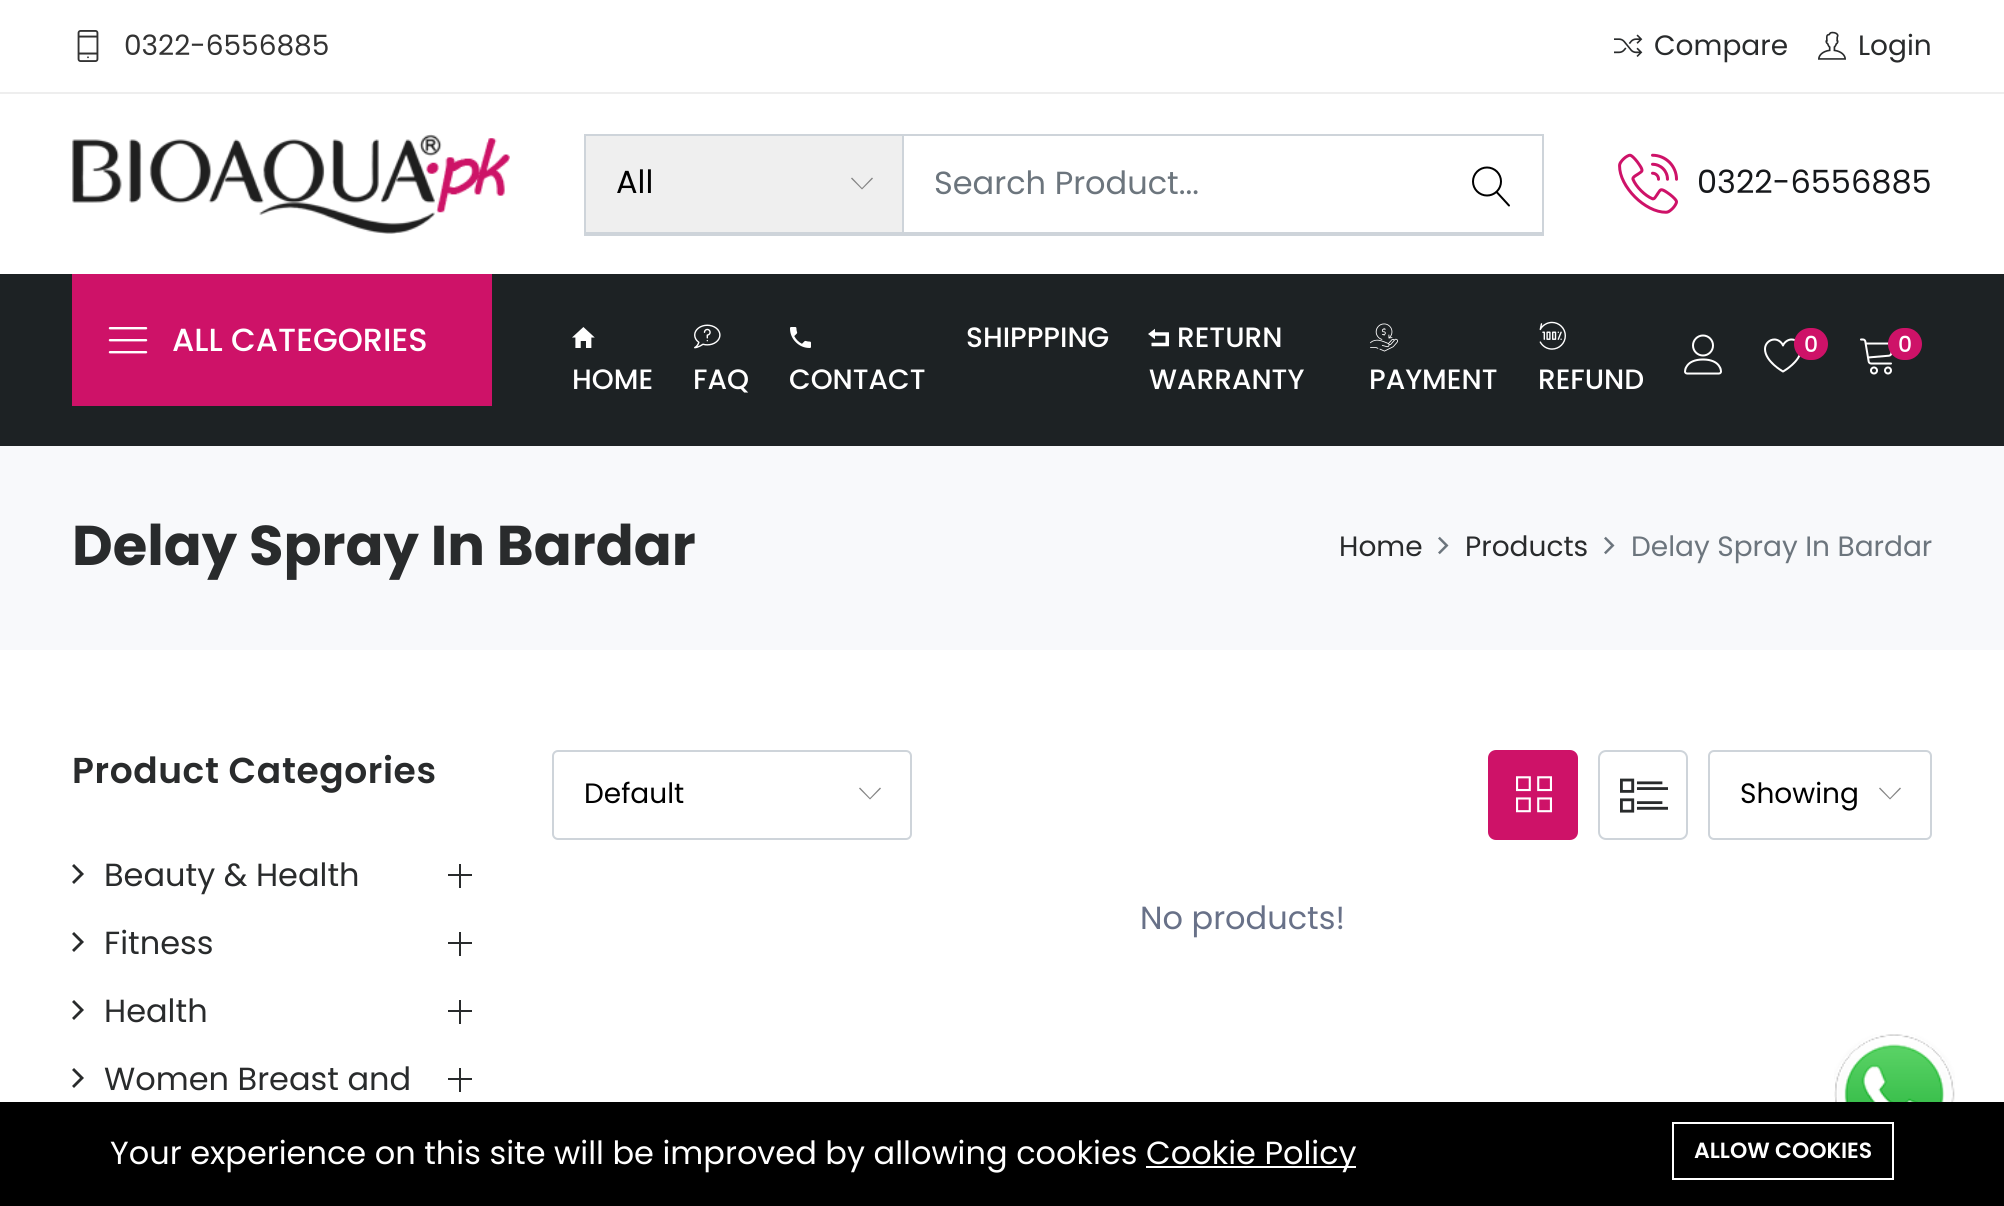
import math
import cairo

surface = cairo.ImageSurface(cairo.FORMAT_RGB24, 2004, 1206)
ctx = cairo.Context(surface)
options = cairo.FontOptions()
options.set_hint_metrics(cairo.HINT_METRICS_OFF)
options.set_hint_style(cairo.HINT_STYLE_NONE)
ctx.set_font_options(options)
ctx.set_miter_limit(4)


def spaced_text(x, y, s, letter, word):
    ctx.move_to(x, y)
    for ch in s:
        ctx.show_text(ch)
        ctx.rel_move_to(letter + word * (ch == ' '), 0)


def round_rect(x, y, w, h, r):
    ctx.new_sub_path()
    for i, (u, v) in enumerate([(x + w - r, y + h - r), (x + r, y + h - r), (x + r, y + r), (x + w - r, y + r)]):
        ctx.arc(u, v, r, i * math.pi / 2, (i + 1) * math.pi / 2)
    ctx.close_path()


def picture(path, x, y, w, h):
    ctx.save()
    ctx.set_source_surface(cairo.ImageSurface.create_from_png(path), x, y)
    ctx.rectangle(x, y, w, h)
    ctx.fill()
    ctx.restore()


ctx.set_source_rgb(1, 1, 1)
ctx.paint()
ctx.set_source_rgb(0.933, 0.933, 0.933)
ctx.rectangle(0, 92, 2004, 2)
ctx.fill()
picture("img1.png", 77, 30, 22, 32)
ctx.select_font_face("Poppins")
ctx.set_font_size(28)
ctx.set_source_rgb(0.2, 0.2, 0.2)
ctx.move_to(124, 55)
ctx.show_text("0322-6556885")
picture("img2.png", 1614, 34, 29, 23)
ctx.set_source_rgb(0.161, 0.169, 0.173)
ctx.move_to(1654, 55)
ctx.show_text("Compare")
picture("img3.png", 1818, 31, 28, 29)
ctx.move_to(1858, 55)
ctx.show_text("Login")
picture("img4.png", 72, 134, 438, 100)
ctx.set_source_rgb(0.937, 0.937, 0.937)
ctx.rectangle(585, 135, 318, 98)
ctx.fill_preserve()
ctx.set_source_rgb(0.808, 0.831, 0.855)
ctx.stroke()
ctx.set_font_size(32)
ctx.set_source_rgb(0, 0, 0)
ctx.move_to(616, 193)
ctx.show_text("All")
ctx.set_source_rgb(0.518, 0.518, 0.518)
ctx.new_path()
ctx.move_to(873, 178.5)
ctx.line_to(862, 189.5)
ctx.line_to(851, 178.5)
ctx.line_to(852, 177.5)
ctx.line_to(862, 188)
ctx.line_to(872, 177.5)
ctx.close_path()
ctx.fill()
ctx.rectangle(903, 135, 640, 98)
ctx.set_source_rgb(0.808, 0.831, 0.855)
ctx.stroke()
ctx.set_source_rgb(0.424, 0.459, 0.49)
ctx.move_to(934, 194)
ctx.show_text("Search Product...")
picture("img5.png", 1472, 166, 38, 41)
ctx.set_source_rgb(0.808, 0.831, 0.855)
ctx.rectangle(584, 234, 960, 2)
ctx.fill()
picture("img6.png", 1618, 153, 60, 61)
ctx.set_source_rgb(0.086, 0.094, 0.106)
ctx.move_to(1697, 193)
ctx.show_text("0322-6556885")
ctx.set_source_rgb(0.114, 0.133, 0.141)
ctx.rectangle(0, 274, 2004, 172)
ctx.fill()
ctx.set_source_rgb(0.808, 0.071, 0.408)
ctx.rectangle(72, 274, 420, 132)
ctx.fill()
picture("img7.png", 108, 327, 40, 27)
ctx.select_font_face("Poppins Medium")
ctx.set_source_rgb(1, 1, 1)
ctx.move_to(172, 351)
ctx.show_text("ALL CATEGORIES")
picture("img8.png", 572, 327, 23, 21)
ctx.set_font_size(28)
ctx.move_to(572, 389)
ctx.show_text("HOME")
picture("img9.png", 694, 324, 27, 25)
ctx.move_to(693, 389)
ctx.show_text("FAQ")
picture("img10.png", 790, 327, 21, 21)
ctx.move_to(789, 389)
ctx.show_text("CONTACT")
ctx.move_to(966, 347)
ctx.show_text("SHIPPPING")
picture("img11.png", 1148, 328, 21, 19)
ctx.move_to(1177, 347)
ctx.show_text("RETURN")
ctx.move_to(1149, 389)
ctx.show_text("WARRANTY")
picture("img12.png", 1370, 323, 28, 29)
ctx.move_to(1369, 389)
ctx.show_text("PAYMENT")
picture("img13.png", 1539, 321, 27, 29)
ctx.move_to(1538, 389)
ctx.show_text("REFUND")
picture("img14.png", 1684, 334, 38, 41)
picture("img15.png", 1764, 338, 37, 35)
ctx.set_source_rgb(0.808, 0.071, 0.408)
round_rect(1794, 328, 34, 32, 16)
ctx.fill()
ctx.set_font_size(22)
ctx.set_source_rgb(1, 1, 1)
ctx.move_to(1804, 352)
ctx.show_text("0")
picture("img16.png", 1860, 338, 33, 37)
ctx.set_source_rgb(0.808, 0.071, 0.408)
round_rect(1888, 328, 34, 32, 16)
ctx.fill()
ctx.set_source_rgb(1, 1, 1)
ctx.move_to(1898, 352)
ctx.show_text("0")
ctx.set_source_rgb(0.969, 0.973, 0.984)
ctx.rectangle(0, 446, 2004, 204)
ctx.fill()
ctx.select_font_face("Poppins", cairo.FONT_SLANT_NORMAL, cairo.FONT_WEIGHT_BOLD)
ctx.set_font_size(56)
ctx.set_source_rgb(0.161, 0.169, 0.173)
ctx.move_to(72, 565)
ctx.show_text("Delay Spray In Bardar")
ctx.select_font_face("Poppins")
ctx.set_font_size(28)
ctx.move_to(1339, 556)
ctx.show_text("Home")
picture("img17.png", 1438, 536, 11, 19)
ctx.move_to(1465, 556)
ctx.show_text("Products")
picture("img17.png", 1604, 536, 11, 19)
ctx.set_source_rgb(0.424, 0.459, 0.49)
ctx.move_to(1631, 556)
ctx.show_text("Delay Spray In Bardar")
ctx.select_font_face("Poppins SemiBold")
ctx.set_font_size(36)
ctx.set_source_rgb(0.161, 0.169, 0.173)
spaced_text(72, 783, "Product Categories", 0.6, 0)
ctx.new_path()
ctx.move_to(72, 866)
ctx.line_to(74, 864)
ctx.line_to(84, 874)
ctx.line_to(74, 884)
ctx.line_to(72, 882)
ctx.line_to(80, 874)
ctx.close_path()
ctx.fill()
ctx.select_font_face("Poppins")
ctx.set_font_size(32)
ctx.move_to(104, 886)
ctx.show_text("Beauty & Health")
ctx.rectangle(448, 874, 24, 2)
ctx.fill()
ctx.rectangle(459, 864, 2, 24)
ctx.fill()
ctx.new_path()
ctx.move_to(72, 934)
ctx.line_to(74, 932)
ctx.line_to(84, 942)
ctx.line_to(74, 952)
ctx.line_to(72, 950)
ctx.line_to(80, 942)
ctx.close_path()
ctx.fill()
ctx.move_to(104, 954)
ctx.show_text("Fitness")
ctx.rectangle(448, 942, 24, 2)
ctx.fill()
ctx.rectangle(459, 932, 2, 24)
ctx.fill()
ctx.new_path()
ctx.move_to(72, 1002)
ctx.line_to(74, 1000)
ctx.line_to(84, 1010)
ctx.line_to(74, 1020)
ctx.line_to(72, 1018)
ctx.line_to(80, 1010)
ctx.close_path()
ctx.fill()
ctx.move_to(104, 1022)
ctx.show_text("Health")
ctx.rectangle(448, 1010, 24, 2)
ctx.fill()
ctx.rectangle(459, 1000, 2, 24)
ctx.fill()
ctx.new_path()
ctx.move_to(72, 1070)
ctx.line_to(74, 1068)
ctx.line_to(84, 1078)
ctx.line_to(74, 1088)
ctx.line_to(72, 1086)
ctx.line_to(80, 1078)
ctx.close_path()
ctx.fill()
ctx.move_to(104, 1090)
ctx.show_text("Women Breast and")
ctx.rectangle(448, 1078, 24, 2)
ctx.fill()
ctx.rectangle(459, 1068, 2, 24)
ctx.fill()
round_rect(553, 751, 358, 88, 5)
ctx.set_source_rgb(0.808, 0.831, 0.855)
ctx.stroke()
ctx.set_font_size(28)
ctx.set_source_rgb(0, 0, 0)
ctx.move_to(584, 803)
ctx.show_text("Default")
ctx.set_source_rgb(0.518, 0.518, 0.518)
ctx.new_path()
ctx.move_to(881, 788.5)
ctx.line_to(870, 799.5)
ctx.line_to(859, 788.5)
ctx.line_to(860, 787.5)
ctx.line_to(870, 798)
ctx.line_to(880, 787.5)
ctx.close_path()
ctx.fill()
ctx.set_source_rgb(0.808, 0.071, 0.408)
round_rect(1489, 751, 88, 88, 7)
ctx.fill_preserve()
ctx.stroke()
picture("img18.png", 1516, 776, 36, 37)
round_rect(1599, 751, 88, 88, 7)
ctx.set_source_rgb(0.808, 0.831, 0.855)
ctx.stroke()
picture("img19.png", 1620, 778, 48, 35)
round_rect(1709, 751, 222, 88, 5)
ctx.stroke()
ctx.set_source_rgb(0, 0, 0)
ctx.move_to(1740, 803)
ctx.show_text("Showing")
ctx.set_source_rgb(0.518, 0.518, 0.518)
ctx.new_path()
ctx.move_to(1901, 788.5)
ctx.line_to(1890, 799.5)
ctx.line_to(1879, 788.5)
ctx.line_to(1880, 787.5)
ctx.line_to(1890, 798)
ctx.line_to(1900, 787.5)
ctx.close_path()
ctx.fill()
ctx.set_font_size(32)
ctx.set_source_rgb(0.408, 0.443, 0.533)
ctx.move_to(1140, 929)
ctx.show_text("No products!")
picture("img20.png", 1834, 1034, 121, 68)
ctx.set_source_rgb(0, 0, 0)
ctx.rectangle(0, 1102, 2004, 104)
ctx.fill()
ctx.set_source_rgb(1, 1, 1)
ctx.move_to(110, 1164)
ctx.show_text("Your experience on this site will be improved by allowing cookies")
ctx.rectangle(1146, 1166, 210, 2)
ctx.fill()
ctx.move_to(1146, 1164)
ctx.show_text("Cookie Policy")
ctx.rectangle(1673, 1123, 220, 56)
ctx.stroke()
ctx.select_font_face("Poppins SemiBold")
ctx.set_font_size(22)
ctx.move_to(1694, 1158)
ctx.show_text("ALLOW COOKIES")
surface.write_to_png("page.png")
